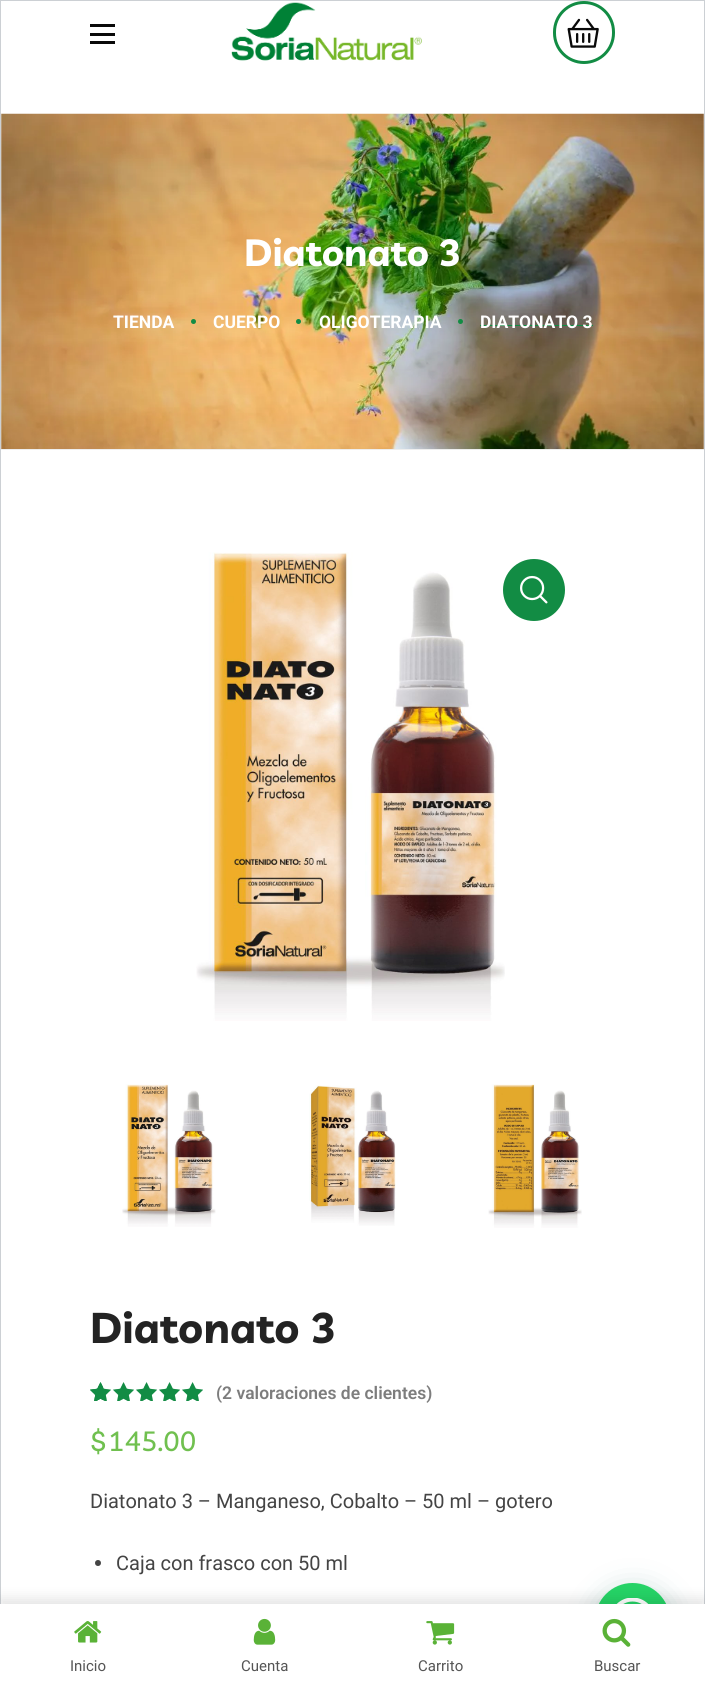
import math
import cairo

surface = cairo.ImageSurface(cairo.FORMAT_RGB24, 705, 1692)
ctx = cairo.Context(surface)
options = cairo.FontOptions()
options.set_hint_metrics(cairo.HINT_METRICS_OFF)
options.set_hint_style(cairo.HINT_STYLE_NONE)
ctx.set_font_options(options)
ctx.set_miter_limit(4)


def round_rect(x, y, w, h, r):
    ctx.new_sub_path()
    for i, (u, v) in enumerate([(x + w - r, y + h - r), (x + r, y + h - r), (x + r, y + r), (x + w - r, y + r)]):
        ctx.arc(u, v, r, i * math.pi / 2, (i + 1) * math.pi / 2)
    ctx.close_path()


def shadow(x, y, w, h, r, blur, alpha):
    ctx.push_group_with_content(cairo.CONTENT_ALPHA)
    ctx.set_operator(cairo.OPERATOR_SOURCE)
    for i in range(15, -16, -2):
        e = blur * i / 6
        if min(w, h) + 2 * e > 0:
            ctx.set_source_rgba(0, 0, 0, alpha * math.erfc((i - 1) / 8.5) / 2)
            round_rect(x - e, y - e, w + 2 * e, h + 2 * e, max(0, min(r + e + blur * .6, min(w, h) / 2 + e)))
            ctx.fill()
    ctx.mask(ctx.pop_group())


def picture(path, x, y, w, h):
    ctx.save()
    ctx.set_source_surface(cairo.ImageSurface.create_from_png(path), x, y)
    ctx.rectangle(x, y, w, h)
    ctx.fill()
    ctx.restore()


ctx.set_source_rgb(1, 1, 1)
ctx.paint()
ctx.rectangle(0.5, 0.5, 704, 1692)
ctx.set_source_rgb(0.8, 0.816, 0.831)
ctx.set_line_width(1)
ctx.stroke()
ctx.set_source_rgb(0.039, 0.039, 0.039)
ctx.rectangle(90, 24, 25, 3)
ctx.fill()
ctx.rectangle(90, 33, 25, 3)
ctx.fill()
ctx.rectangle(90, 41, 25, 3)
ctx.fill()
picture("img1.png", 231, 2, 191, 59)
round_rect(554.5, 2.5, 59, 60, 29.5)
ctx.set_source_rgb(0.071, 0.549, 0.267)
ctx.set_line_width(3)
ctx.stroke()
picture("img2.png", 567, 18, 32, 30)
picture("img3.png", 1, 113, 703, 336)
ctx.set_source_rgb(0.933, 0.933, 0.933)
ctx.rectangle(1, 449, 703, 1)
ctx.fill()
ctx.select_font_face("Livvic", cairo.FONT_SLANT_NORMAL, cairo.FONT_WEIGHT_BOLD)
ctx.set_font_size(37.5)
ctx.set_source_rgb(1, 1, 1)
ctx.move_to(244, 266)
ctx.show_text("Diatonato 3")
ctx.select_font_face("Roboto", cairo.FONT_SLANT_NORMAL, cairo.FONT_WEIGHT_BOLD)
ctx.set_font_size(17.5)
ctx.move_to(113, 328)
ctx.show_text("TIENDA")
ctx.set_source_rgb(0.071, 0.549, 0.267)
ctx.new_path()
ctx.arc(193.5, 321.5, 2.5, 0, 2 * math.pi)
ctx.fill()
ctx.set_source_rgb(1, 1, 1)
ctx.move_to(213, 328)
ctx.show_text("CUERPO")
ctx.set_source_rgb(0.071, 0.549, 0.267)
ctx.new_path()
ctx.arc(298.5, 321.5, 2.5, 0, 2 * math.pi)
ctx.fill()
ctx.set_source_rgb(1, 1, 1)
ctx.move_to(319, 328)
ctx.show_text("OLIGOTERAPIA")
ctx.set_source_rgb(0.071, 0.549, 0.267)
ctx.new_path()
ctx.arc(460.5, 321.5, 2.5, 0, 2 * math.pi)
ctx.fill()
ctx.rectangle(480, 325, 113, 1)
ctx.fill()
ctx.set_source_rgb(1, 1, 1)
ctx.move_to(480, 328)
ctx.show_text("DIATONATO 3")
picture("img4.png", 196, 552, 309, 469)
ctx.set_source_rgb(0.071, 0.549, 0.267)
ctx.arc(534, 590, 31, 0, 2 * math.pi)
ctx.fill()
picture("img5.png", 520, 575, 28, 29)
picture("img6.png", 122, 1084, 94, 143)
picture("img7.png", 309, 1085, 87, 141)
picture("img8.png", 488, 1084, 94, 144)
ctx.select_font_face("Livvic", cairo.FONT_SLANT_NORMAL, cairo.FONT_WEIGHT_BOLD)
ctx.set_font_size(42.5)
ctx.set_source_rgb(0.137, 0.137, 0.137)
ctx.move_to(90, 1343)
ctx.show_text("Diatonato 3")
picture("img9.png", 90, 1382, 113, 19)
picture("img10.png", 90, 1382, 113, 19)
picture("img11.png", 90, 1382, 13, 19)
ctx.select_font_face("Roboto SemiBold")
ctx.set_font_size(17.5)
ctx.set_source_rgb(0.49, 0.49, 0.49)
ctx.move_to(216, 1399)
ctx.show_text("(2 valoraciones de clientes)")
ctx.select_font_face("Livvic Medium")
ctx.set_font_size(27.5)
ctx.set_source_rgb(0.439, 0.753, 0.31)
ctx.move_to(90, 1451)
ctx.show_text("$")
ctx.move_to(108, 1451)
ctx.show_text("145.00")
ctx.select_font_face("Roboto")
ctx.set_font_size(20)
ctx.set_source_rgb(0.267, 0.267, 0.267)
ctx.move_to(90, 1508)
ctx.show_text("Diatonato 3 – Manganeso, Cobalto – 50 ml – gotero")
ctx.new_path()
ctx.arc(98, 1563, 3, 0, 2 * math.pi)
ctx.fill()
ctx.move_to(116, 1570)
ctx.show_text("Caja con frasco con 50 ml")
ctx.set_source_rgb(0.027, 0.369, 0.329)
shadow(596, 1590, 75, 75, 37.5, 15, 0.24)
ctx.set_source_rgb(0.145, 0.827, 0.4)
ctx.arc(632.5, 1620.5, 37.5, 0, 2 * math.pi)
ctx.fill()
picture("img12.png", 616, 1598, 33, 6)
ctx.set_source_rgb(0, 0, 0)
shadow(0, 1598, 705, 88, 0, 6, 0.1)
ctx.set_source_rgb(1, 1, 1)
ctx.rectangle(0, 1604, 705, 88)
ctx.fill()
picture("img13.png", 74, 1621, 28, 22)
ctx.set_font_size(15)
ctx.set_source_rgb(0.333, 0.333, 0.333)
ctx.move_to(70, 1671)
ctx.show_text("Inicio")
picture("img14.png", 253, 1618, 23, 27)
ctx.move_to(241, 1671)
ctx.show_text("Cuenta")
picture("img15.png", 426, 1621, 29, 24)
ctx.move_to(418, 1671)
ctx.show_text("Carrito")
picture("img16.png", 602, 1618, 29, 29)
ctx.move_to(594, 1671)
ctx.show_text("Buscar")
surface.write_to_png("page.png")
